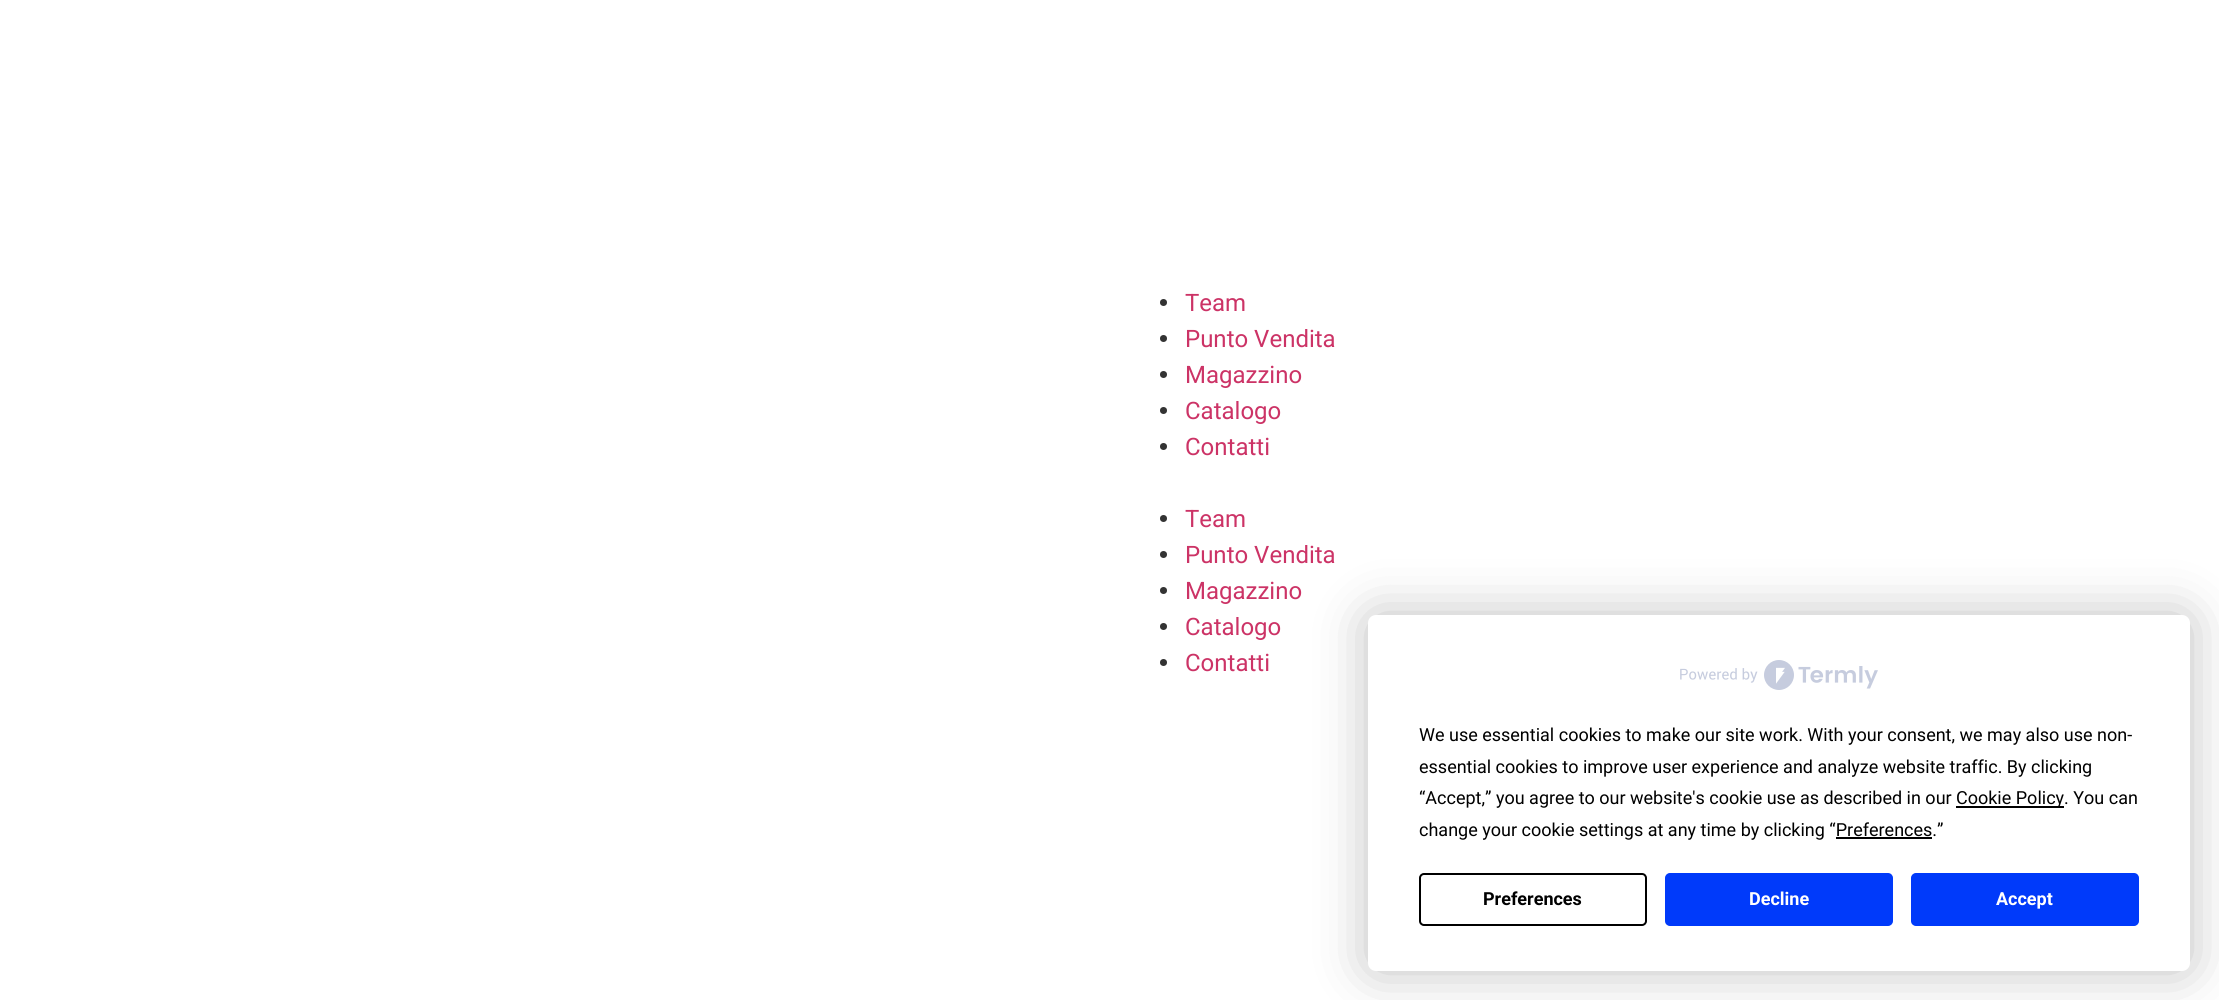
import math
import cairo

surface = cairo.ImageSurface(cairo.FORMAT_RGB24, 2219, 1000)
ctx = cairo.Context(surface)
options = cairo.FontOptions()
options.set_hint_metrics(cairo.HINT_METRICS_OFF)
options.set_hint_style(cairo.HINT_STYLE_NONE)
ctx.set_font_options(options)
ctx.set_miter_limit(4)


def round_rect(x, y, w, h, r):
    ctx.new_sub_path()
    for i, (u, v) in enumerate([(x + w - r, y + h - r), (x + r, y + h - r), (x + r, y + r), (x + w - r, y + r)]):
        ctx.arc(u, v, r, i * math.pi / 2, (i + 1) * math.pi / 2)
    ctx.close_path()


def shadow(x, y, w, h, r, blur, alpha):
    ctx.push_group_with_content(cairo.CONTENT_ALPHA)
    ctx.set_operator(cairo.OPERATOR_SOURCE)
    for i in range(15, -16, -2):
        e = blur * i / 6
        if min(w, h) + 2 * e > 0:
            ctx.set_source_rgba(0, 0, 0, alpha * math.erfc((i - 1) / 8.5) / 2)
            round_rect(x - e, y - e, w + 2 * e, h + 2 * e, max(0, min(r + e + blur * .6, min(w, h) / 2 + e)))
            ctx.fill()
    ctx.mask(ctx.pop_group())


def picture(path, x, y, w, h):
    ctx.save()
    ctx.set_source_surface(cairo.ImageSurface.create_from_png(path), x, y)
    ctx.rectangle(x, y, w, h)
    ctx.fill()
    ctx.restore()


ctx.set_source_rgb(1, 1, 1)
ctx.paint()
ctx.set_source_rgb(0.2, 0.2, 0.2)
ctx.arc(1163.5, 302.5, 3.5, 0, 2 * math.pi)
ctx.fill()
ctx.select_font_face("Roboto")
ctx.set_font_size(24)
ctx.set_source_rgb(0.8, 0.2, 0.4)
ctx.move_to(1185, 311)
ctx.show_text("Team")
ctx.set_source_rgb(0.2, 0.2, 0.2)
ctx.new_path()
ctx.arc(1163.5, 338.5, 3.5, 0, 2 * math.pi)
ctx.fill()
ctx.set_source_rgb(0.8, 0.2, 0.4)
ctx.move_to(1185, 347)
ctx.show_text("Punto Vendita")
ctx.set_source_rgb(0.2, 0.2, 0.2)
ctx.new_path()
ctx.arc(1163.5, 374.5, 3.5, 0, 2 * math.pi)
ctx.fill()
ctx.set_source_rgb(0.8, 0.2, 0.4)
ctx.move_to(1185, 383)
ctx.show_text("Magazzino")
ctx.set_source_rgb(0.2, 0.2, 0.2)
ctx.new_path()
ctx.arc(1163.5, 410.5, 3.5, 0, 2 * math.pi)
ctx.fill()
ctx.set_source_rgb(0.8, 0.2, 0.4)
ctx.move_to(1185, 419)
ctx.show_text("Catalogo")
ctx.set_source_rgb(0.2, 0.2, 0.2)
ctx.new_path()
ctx.arc(1163.5, 446.5, 3.5, 0, 2 * math.pi)
ctx.fill()
ctx.set_source_rgb(0.8, 0.2, 0.4)
ctx.move_to(1185, 455)
ctx.show_text("Contatti")
ctx.set_source_rgb(0.2, 0.2, 0.2)
ctx.new_path()
ctx.arc(1163.5, 518.5, 3.5, 0, 2 * math.pi)
ctx.fill()
ctx.set_source_rgb(0.8, 0.2, 0.4)
ctx.move_to(1185, 527)
ctx.show_text("Team")
ctx.set_source_rgb(0.2, 0.2, 0.2)
ctx.new_path()
ctx.arc(1163.5, 554.5, 3.5, 0, 2 * math.pi)
ctx.fill()
ctx.set_source_rgb(0.8, 0.2, 0.4)
ctx.move_to(1185, 563)
ctx.show_text("Punto Vendita")
ctx.set_source_rgb(0.2, 0.2, 0.2)
ctx.new_path()
ctx.arc(1163.5, 590.5, 3.5, 0, 2 * math.pi)
ctx.fill()
ctx.set_source_rgb(0.8, 0.2, 0.4)
ctx.move_to(1185, 599)
ctx.show_text("Magazzino")
ctx.set_source_rgb(0.2, 0.2, 0.2)
ctx.new_path()
ctx.arc(1163.5, 626.5, 3.5, 0, 2 * math.pi)
ctx.fill()
ctx.set_source_rgb(0.8, 0.2, 0.4)
ctx.move_to(1185, 635)
ctx.show_text("Catalogo")
ctx.set_source_rgb(0.2, 0.2, 0.2)
ctx.new_path()
ctx.arc(1163.5, 662.5, 3.5, 0, 2 * math.pi)
ctx.fill()
ctx.set_source_rgb(0.8, 0.2, 0.4)
ctx.move_to(1185, 671)
ctx.show_text("Contatti")
ctx.set_source_rgb(0, 0, 0)
shadow(1368, 615, 822, 356, 8, 26, 0.25)
ctx.set_source_rgb(1, 1, 1)
round_rect(1368, 615, 822, 356, 8)
ctx.fill()
picture("img1.png", 1680, 660, 198, 30)
ctx.set_font_size(18)
ctx.set_source_rgb(0, 0, 0)
ctx.move_to(1419, 741)
ctx.show_text("We use essential cookies to make our site work. With your consent, we may also use non-")
ctx.move_to(1419, 773)
ctx.show_text("essential cookies to improve user experience and analyze website traffic. By clicking")
ctx.move_to(1419, 804)
ctx.show_text("“Accept,” you agree to our website's cookie use as described in our")
ctx.rectangle(1956, 806, 108, 2)
ctx.fill()
ctx.move_to(1956, 804)
ctx.show_text("Cookie Policy. You can")
ctx.move_to(1419, 836)
ctx.show_text("change your cookie settings at any time by clicking “Preferences.”")
ctx.rectangle(1836, 837, 96, 2)
ctx.fill()
round_rect(1420, 874, 226, 51, 4)
ctx.stroke()
ctx.select_font_face("Roboto", cairo.FONT_SLANT_NORMAL, cairo.FONT_WEIGHT_BOLD)
ctx.move_to(1483, 905)
ctx.show_text("Preferences")
ctx.set_source_rgb(0, 0.227, 0.98)
round_rect(1666, 874, 226, 51, 4)
ctx.fill_preserve()
ctx.stroke()
ctx.set_source_rgb(1, 1, 1)
ctx.move_to(1749, 905)
ctx.show_text("Decline")
ctx.set_source_rgb(0, 0.227, 0.98)
round_rect(1912, 874, 226, 51, 4)
ctx.fill_preserve()
ctx.stroke()
ctx.set_source_rgb(1, 1, 1)
ctx.move_to(1996, 905)
ctx.show_text("Accept")
surface.write_to_png("page.png")
